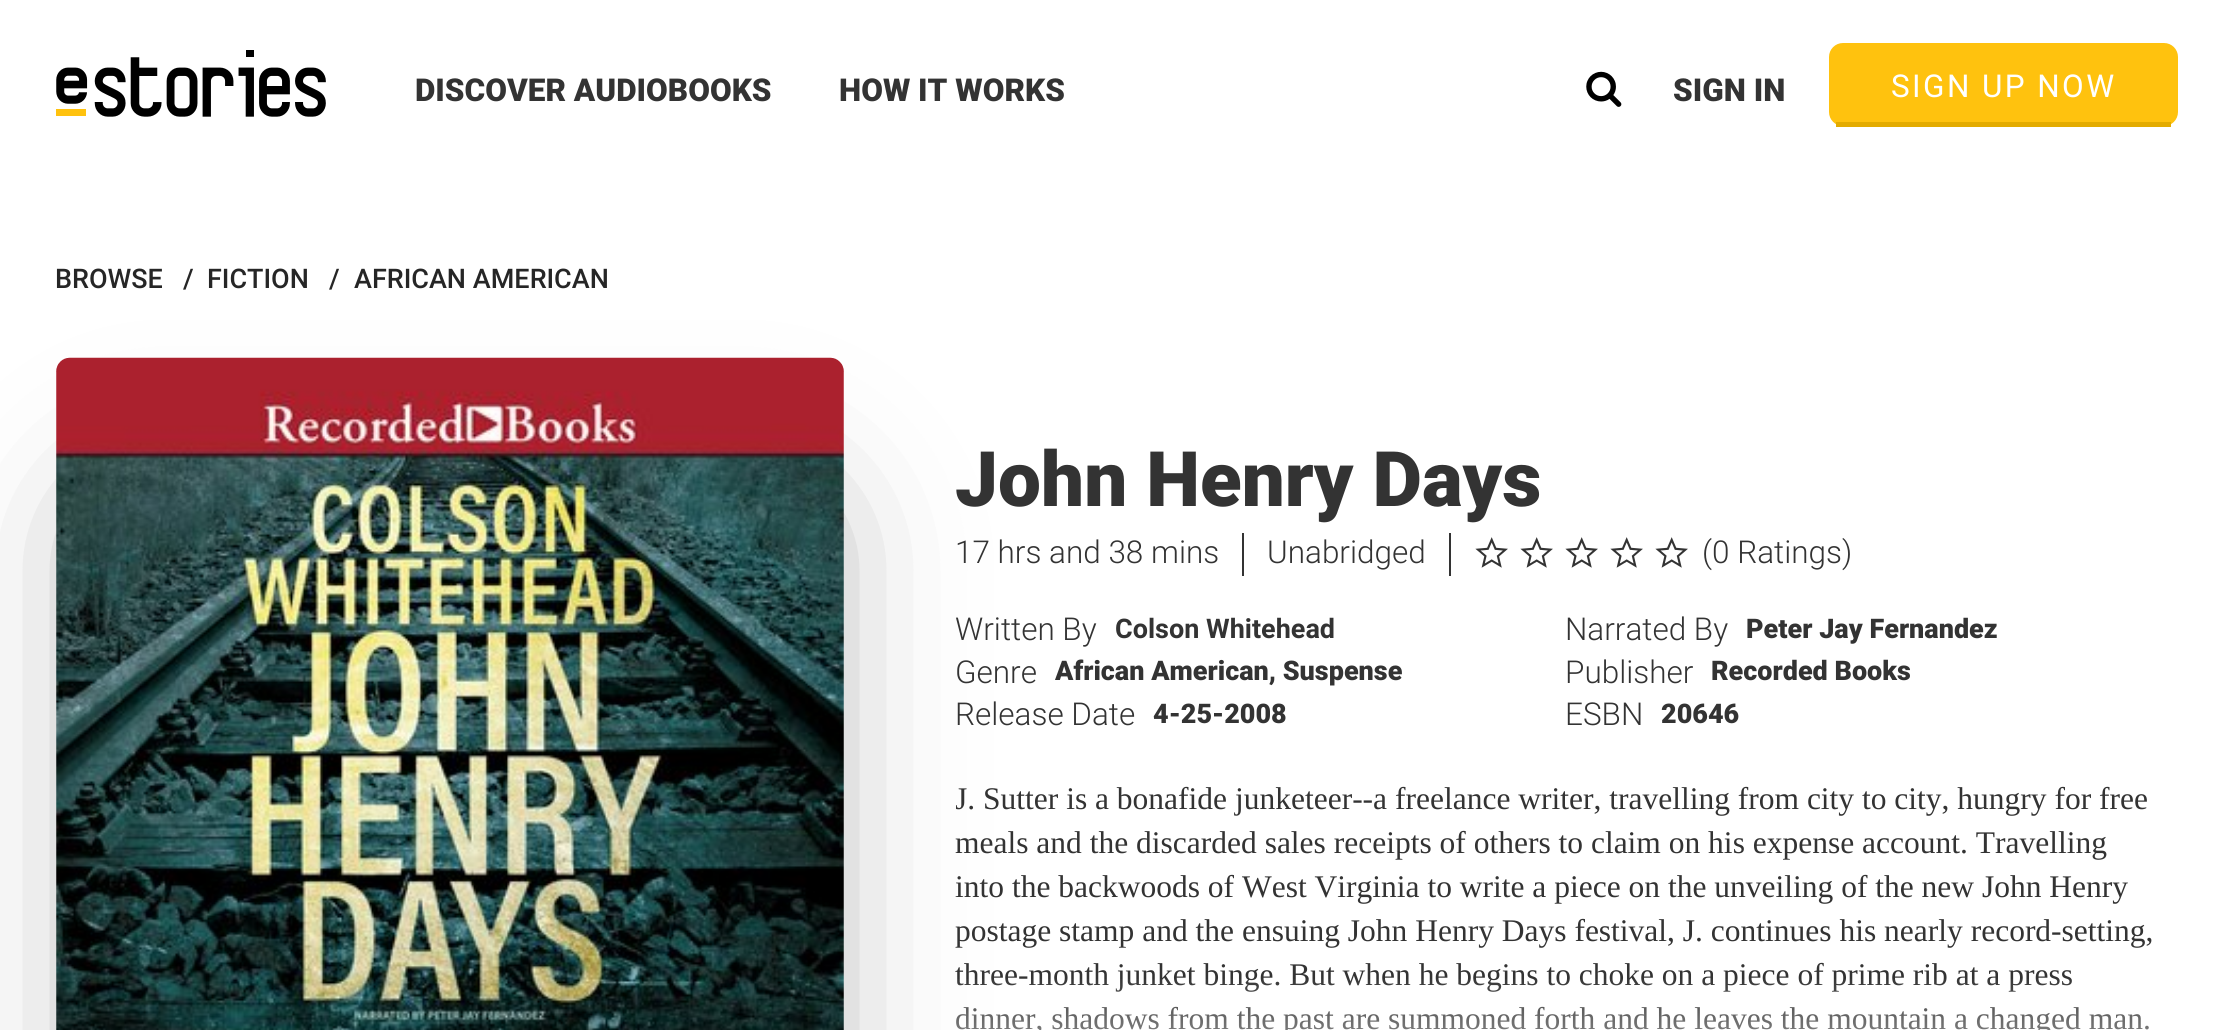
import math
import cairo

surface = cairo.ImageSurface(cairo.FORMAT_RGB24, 2230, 1030)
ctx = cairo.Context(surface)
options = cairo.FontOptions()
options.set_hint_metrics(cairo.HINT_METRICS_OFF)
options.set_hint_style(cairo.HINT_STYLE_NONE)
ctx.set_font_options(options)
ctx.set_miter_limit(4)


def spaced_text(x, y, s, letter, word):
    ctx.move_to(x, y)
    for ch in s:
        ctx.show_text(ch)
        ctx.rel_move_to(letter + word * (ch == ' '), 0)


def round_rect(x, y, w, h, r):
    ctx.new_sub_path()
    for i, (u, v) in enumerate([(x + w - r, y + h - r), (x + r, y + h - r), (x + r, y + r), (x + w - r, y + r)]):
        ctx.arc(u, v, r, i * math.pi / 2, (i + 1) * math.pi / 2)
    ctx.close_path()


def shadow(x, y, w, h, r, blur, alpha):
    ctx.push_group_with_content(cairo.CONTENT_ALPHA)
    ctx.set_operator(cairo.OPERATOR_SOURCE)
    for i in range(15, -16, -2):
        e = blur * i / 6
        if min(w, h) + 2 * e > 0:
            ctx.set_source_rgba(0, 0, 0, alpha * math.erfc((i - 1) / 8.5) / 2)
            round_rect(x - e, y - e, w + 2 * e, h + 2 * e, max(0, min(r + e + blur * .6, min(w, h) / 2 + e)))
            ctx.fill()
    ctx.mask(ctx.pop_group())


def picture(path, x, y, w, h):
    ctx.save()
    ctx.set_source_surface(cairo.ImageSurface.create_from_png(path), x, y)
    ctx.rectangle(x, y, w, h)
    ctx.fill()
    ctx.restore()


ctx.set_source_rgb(1, 1, 1)
ctx.paint()
picture("img1.png", 56, 50, 270, 67)
ctx.select_font_face("Roboto Black")
ctx.set_font_size(31.5)
ctx.set_source_rgb(0.2, 0.2, 0.2)
ctx.move_to(415, 101)
ctx.show_text("DISCOVER AUDIOBOOKS")
ctx.move_to(839, 101)
ctx.show_text("HOW IT WORKS")
picture("img2.png", 1586, 71, 36, 36)
ctx.move_to(1673, 101)
ctx.show_text("SIGN IN")
ctx.set_source_rgb(1, 0.761, 0.055)
round_rect(1829, 43, 349, 83, 14)
ctx.fill()
ctx.set_source_rgb(0.89, 0.671, 0)
ctx.rectangle(1836, 122, 335, 5)
ctx.fill()
ctx.select_font_face("Roboto")
ctx.set_source_rgb(1, 1, 1)
spaced_text(1891, 97, "SIGN UP NOW", 2.4, 0)
ctx.select_font_face("Roboto Medium")
ctx.set_font_size(27)
ctx.set_source_rgb(0.149, 0.149, 0.149)
ctx.move_to(55, 288)
ctx.show_text("BROWSE")
ctx.move_to(183, 288)
ctx.show_text("/")
ctx.move_to(207, 288)
ctx.show_text("FICTION")
ctx.move_to(329, 288)
ctx.show_text("/")
ctx.move_to(354, 288)
ctx.show_text("AFRICAN AMERICAN")
ctx.set_source_rgb(0, 0, 0)
shadow(117, 522, 675, 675, 0, 81, 0.45)
picture("img3.png", 56, 357, 788, 673)
ctx.select_font_face("Roboto Black")
ctx.set_font_size(76.5)
ctx.set_source_rgb(0.2, 0.2, 0.2)
ctx.move_to(955, 506)
ctx.show_text("John Henry Days")
ctx.select_font_face("Roboto Light")
ctx.set_font_size(31.5)
ctx.move_to(955, 563)
ctx.show_text("17 hrs and 38 mins")
ctx.rectangle(1242, 533, 2, 43)
ctx.fill()
ctx.move_to(1267, 563)
ctx.show_text("Unabridged")
ctx.rectangle(1449, 533, 2, 43)
ctx.fill()
picture("img4.png", 1475, 537, 33, 31)
picture("img4.png", 1520, 537, 33, 31)
picture("img4.png", 1565, 537, 33, 31)
picture("img4.png", 1610, 537, 33, 31)
picture("img4.png", 1655, 537, 33, 31)
ctx.move_to(1702, 563)
ctx.show_text("(0 Ratings)")
ctx.move_to(955, 640)
ctx.show_text("Written By")
ctx.select_font_face("Roboto", cairo.FONT_SLANT_NORMAL, cairo.FONT_WEIGHT_BOLD)
ctx.set_font_size(27)
ctx.move_to(1115, 638)
ctx.show_text("Colson Whitehead")
ctx.select_font_face("Roboto Light")
ctx.set_font_size(31.5)
ctx.move_to(1565, 640)
ctx.show_text("Narrated By")
ctx.select_font_face("Roboto Black")
ctx.set_font_size(27)
ctx.move_to(1746, 638)
ctx.show_text("Peter Jay Fernandez")
ctx.select_font_face("Roboto Light")
ctx.set_font_size(31.5)
ctx.move_to(955, 683)
ctx.show_text("Genre")
ctx.select_font_face("Roboto Black")
ctx.set_font_size(27)
ctx.move_to(1055, 680)
ctx.show_text("African American, Suspense")
ctx.select_font_face("Roboto Light")
ctx.set_font_size(31.5)
ctx.move_to(1565, 683)
ctx.show_text("Publisher")
ctx.select_font_face("Roboto Black")
ctx.set_font_size(27)
ctx.move_to(1711, 680)
ctx.show_text("Recorded Books")
ctx.select_font_face("Roboto Light")
ctx.set_font_size(31.5)
ctx.move_to(955, 725)
ctx.show_text("Release Date")
ctx.select_font_face("Roboto Black")
ctx.set_font_size(27)
ctx.move_to(1153, 723)
ctx.show_text("4-25-2008")
ctx.select_font_face("Roboto Light")
ctx.set_font_size(31.5)
ctx.move_to(1565, 725)
ctx.show_text("ESBN")
ctx.select_font_face("Roboto Black")
ctx.set_font_size(27)
ctx.move_to(1661, 723)
ctx.show_text("20646")
ctx.save()
ctx.rectangle(956, 776, 1206, 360)
ctx.clip()
ctx.select_font_face("Liberation Serif")
ctx.set_font_size(31.5)
ctx.move_to(955, 809)
ctx.show_text("J. Sutter is a bonafide junketeer--a freelance writer, travelling from city to city, hungry for free")
ctx.restore()
ctx.select_font_face("Liberation Serif")
ctx.set_font_size(31.5)
ctx.move_to(955, 853)
ctx.show_text("meals and the discarded sales receipts of others to claim on his expense account. Travelling")
ctx.move_to(955, 897)
ctx.show_text("into the backwoods of West Virginia to write a piece on the unveiling of the new John Henry")
ctx.move_to(955, 941)
ctx.show_text("postage stamp and the ensuing John Henry Days festival, J. continues his nearly record-setting,")
ctx.move_to(955, 985)
ctx.show_text("three-month junket binge. But when he begins to choke on a piece of prime rib at a press")
ctx.move_to(955, 1029)
ctx.show_text("dinner, shadows from the past are summoned forth and he leaves the mountain a changed man.")
gradient = cairo.LinearGradient(1559, 976, 1559, 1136)
gradient.add_color_stop_rgba(0, 1, 1, 1, 0)
gradient.add_color_stop_rgba(1, 1, 1, 1, 1)
ctx.set_source(gradient)
ctx.rectangle(956, 979, 1193, 51)
ctx.fill()
surface.write_to_png("page.png")
